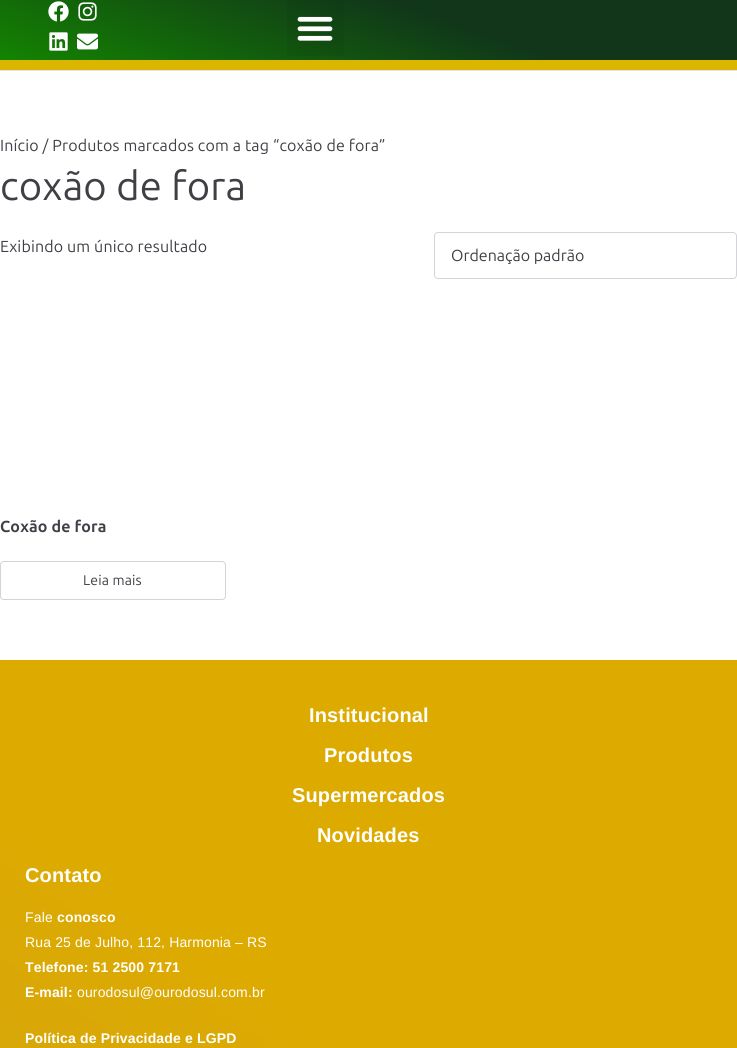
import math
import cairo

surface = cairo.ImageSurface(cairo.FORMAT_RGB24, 737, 1048)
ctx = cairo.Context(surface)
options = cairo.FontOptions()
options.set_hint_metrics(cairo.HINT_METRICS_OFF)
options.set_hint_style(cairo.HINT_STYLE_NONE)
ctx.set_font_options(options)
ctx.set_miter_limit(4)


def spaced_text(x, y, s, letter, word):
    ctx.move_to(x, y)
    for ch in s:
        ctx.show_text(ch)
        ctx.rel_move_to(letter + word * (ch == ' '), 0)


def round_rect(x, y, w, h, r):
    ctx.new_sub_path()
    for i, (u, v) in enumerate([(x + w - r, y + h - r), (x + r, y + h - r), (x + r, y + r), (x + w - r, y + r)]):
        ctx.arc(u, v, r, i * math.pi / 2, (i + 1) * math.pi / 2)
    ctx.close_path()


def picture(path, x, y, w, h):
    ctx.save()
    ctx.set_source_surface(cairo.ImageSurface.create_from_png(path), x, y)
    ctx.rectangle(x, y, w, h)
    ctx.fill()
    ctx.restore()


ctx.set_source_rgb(0.894, 0.894, 0.906)
ctx.paint()
gradient = cairo.LinearGradient(421, -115, 316, 175)
gradient.add_color_stop_rgba(0.38, 0.067, 0.212, 0.102, 1)
gradient.add_color_stop_rgba(1, 0.075, 0.518, 0, 1)
ctx.set_source(gradient)
ctx.rectangle(0, 0, 737, 60)
ctx.fill()
ctx.set_source_rgb(0.859, 0.714, 0)
ctx.rectangle(0, 60, 737, 10)
ctx.fill()
picture("img1.png", 48, 1, 21, 21)
picture("img2.png", 78, 2, 19, 19)
picture("img3.png", 49, 32, 19, 19)
picture("img4.png", 77, 33, 21, 17)
ctx.set_source_rgba(0, 0, 0, 0.05)
ctx.rectangle(287, 0, 57, 56)
ctx.fill()
picture("img5.png", 297, 16, 36, 25)
ctx.set_source_rgb(1, 1, 1)
ctx.rectangle(0, 71, 737, 589)
ctx.fill()
ctx.select_font_face("Ubuntu")
ctx.set_font_size(16)
ctx.set_source_rgb(0.247, 0.247, 0.275)
spaced_text(0, 151, "Início / Produtos marcados com a tag “coxão de fora”", 0.15, 0)
ctx.set_font_size(40)
spaced_text(0, 200, "coxão de fora", 0.15, 0)
ctx.set_font_size(16)
spaced_text(0, 252, "Exibindo um único resultado", 0.15, 0)
round_rect(434.5, 232.5, 302, 46, 3.5)
ctx.set_source_rgb(0.831, 0.831, 0.847)
ctx.set_line_width(1)
ctx.stroke()
ctx.set_source_rgb(0.247, 0.247, 0.275)
ctx.move_to(451, 261)
ctx.show_text("Ordenação padrão")
ctx.select_font_face("Ubuntu", cairo.FONT_SLANT_NORMAL, cairo.FONT_WEIGHT_BOLD)
spaced_text(0, 532, "Coxão de fora", 0.15, 0)
round_rect(0.5, 561.5, 225, 38, 3.5)
ctx.set_source_rgb(0.831, 0.831, 0.847)
ctx.stroke()
ctx.select_font_face("Ubuntu")
ctx.set_font_size(14)
ctx.set_source_rgb(0.247, 0.247, 0.275)
spaced_text(83, 585, "Leia mais", 0.15, 0)
gradient = cairo.LinearGradient(731, 656, 5.9, 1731)
gradient.add_color_stop_rgba(0.41, 0.867, 0.667, 0, 1)
gradient.add_color_stop_rgba(0.85, 0.808, 0.639, 0.098, 1)
ctx.set_source(gradient)
ctx.rectangle(0, 660, 737, 388)
ctx.fill()
ctx.select_font_face("Liberation Sans", cairo.FONT_SLANT_NORMAL, cairo.FONT_WEIGHT_BOLD)
ctx.set_font_size(20)
ctx.set_source_rgb(1, 1, 1)
spaced_text(309, 722, "Institucional", 0.15, 0)
spaced_text(324, 762, "Produtos", 0.15, 0)
spaced_text(292, 802, "Supermercados", 0.15, 0)
spaced_text(317, 842, "Novidades", 0.15, 0)
spaced_text(25, 882, "Contato", 0.15, 0)
ctx.select_font_face("Liberation Sans")
ctx.set_font_size(14)
spaced_text(25, 922, "Fale", 0.15, 0)
ctx.select_font_face("Liberation Sans", cairo.FONT_SLANT_NORMAL, cairo.FONT_WEIGHT_BOLD)
spaced_text(57, 922, "conosco", 0.15, 0)
ctx.select_font_face("Liberation Sans")
spaced_text(25, 947, "Rua 25 de Julho, 112, Harmonia – RS", 0.15, 0)
ctx.select_font_face("Liberation Sans", cairo.FONT_SLANT_NORMAL, cairo.FONT_WEIGHT_BOLD)
spaced_text(25, 972, "Telefone: 51 2500 7171", 0.15, 0)
spaced_text(25, 997, "E-mail:", 0.15, 0)
ctx.select_font_face("Liberation Sans")
spaced_text(77, 997, "ourodosul@ourodosul.com.br", 0.15, 0)
ctx.select_font_face("Liberation Sans", cairo.FONT_SLANT_NORMAL, cairo.FONT_WEIGHT_BOLD)
spaced_text(25, 1043, "Política de Privacidade e LGPD", 0.15, 0)
surface.write_to_png("page.png")
